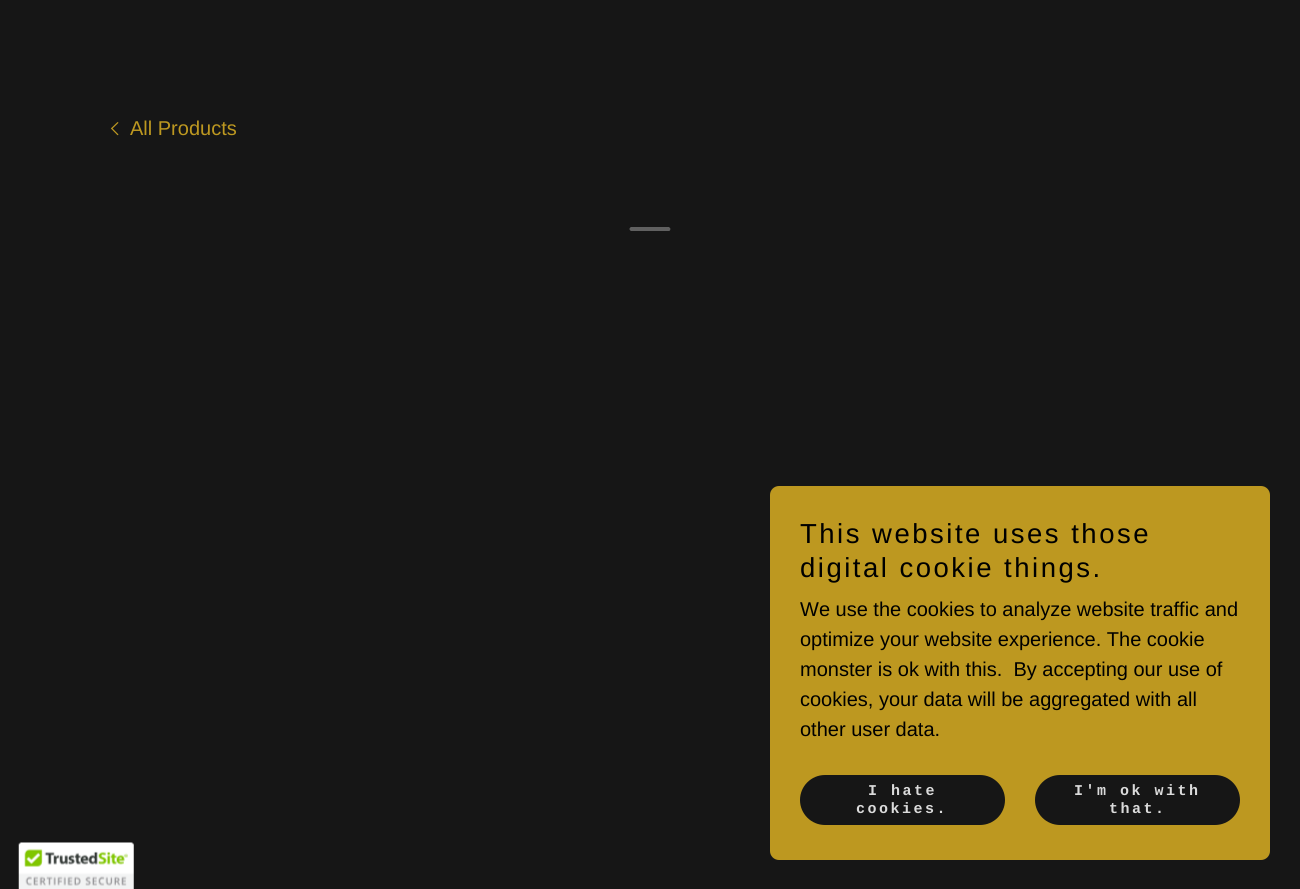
import math
import cairo

surface = cairo.ImageSurface(cairo.FORMAT_RGB24, 1300, 889)
ctx = cairo.Context(surface)
options = cairo.FontOptions()
options.set_hint_metrics(cairo.HINT_METRICS_OFF)
options.set_hint_style(cairo.HINT_STYLE_NONE)
ctx.set_font_options(options)
ctx.set_miter_limit(4)


def spaced_text(x, y, s, letter, word):
    ctx.move_to(x, y)
    for ch in s:
        ctx.show_text(ch)
        ctx.rel_move_to(letter + word * (ch == ' '), 0)


def round_rect(x, y, w, h, r):
    ctx.new_sub_path()
    for i, (u, v) in enumerate([(x + w - r, y + h - r), (x + r, y + h - r), (x + r, y + r), (x + w - r, y + r)]):
        ctx.arc(u, v, r, i * math.pi / 2, (i + 1) * math.pi / 2)
    ctx.close_path()


def picture(path, x, y, w, h):
    ctx.save()
    ctx.set_source_surface(cairo.ImageSurface.create_from_png(path), x, y)
    ctx.rectangle(x, y, w, h)
    ctx.fill()
    ctx.restore()


ctx.set_source_rgb(0.086, 0.086, 0.086)
ctx.paint()
picture("img1.png", 110, 122, 9, 14)
ctx.select_font_face("Liberation Sans")
ctx.set_font_size(20)
ctx.set_source_rgb(0.741, 0.596, 0.125)
ctx.move_to(130, 135)
ctx.show_text("All Products")
ctx.set_source_rgb(0.376, 0.376, 0.376)
ctx.set_fill_rule(cairo.FILL_RULE_EVEN_ODD)
ctx.new_path()
ctx.move_to(669, 231)
ctx.line_to(631, 231)
ctx.curve_to(629, 230, 629, 228, 631, 227)
ctx.line_to(669, 227)
ctx.line_to(670, 228)
ctx.curve_to(671, 229, 670, 231, 669, 231)
ctx.fill()
ctx.set_source_rgb(0.741, 0.596, 0.125)
round_rect(770, 486, 500, 374, 9)
ctx.fill()
ctx.set_font_size(27.5)
ctx.set_source_rgb(0, 0, 0)
spaced_text(800, 543, "This website uses those", 2.5, 0)
spaced_text(800, 577, "digital cookie things.", 2.5, 0)
ctx.set_font_size(20)
ctx.move_to(800, 616)
ctx.show_text("We use the cookies to analyze website traffic and")
ctx.move_to(800, 646)
ctx.show_text("optimize your website experience. The cookie")
ctx.move_to(800, 676)
ctx.show_text("monster is ok with this.  By accepting our use of")
ctx.move_to(800, 706)
ctx.show_text("cookies, your data will be aggregated with all")
ctx.move_to(800, 736)
ctx.show_text("other user data.")
ctx.set_source_rgb(0.086, 0.086, 0.086)
round_rect(800, 775, 205, 50, 25)
ctx.fill()
ctx.select_font_face("Liberation Mono", cairo.FONT_SLANT_NORMAL, cairo.FONT_WEIGHT_BOLD)
ctx.set_font_size(15)
ctx.set_source_rgb(0.859, 0.859, 0.859)
spaced_text(868, 795, "I hate", 2.5, 0)
spaced_text(856, 813, "cookies.", 2.5, 0)
ctx.set_source_rgb(0.086, 0.086, 0.086)
round_rect(1035, 775, 205, 50, 25)
ctx.fill()
ctx.set_source_rgb(0.859, 0.859, 0.859)
spaced_text(1074, 795, "I'm ok with", 2.5, 0)
spaced_text(1109, 813, "that.", 2.5, 0)
picture("img2.png", 18, 842, 116, 47)
surface.write_to_png("page.png")
